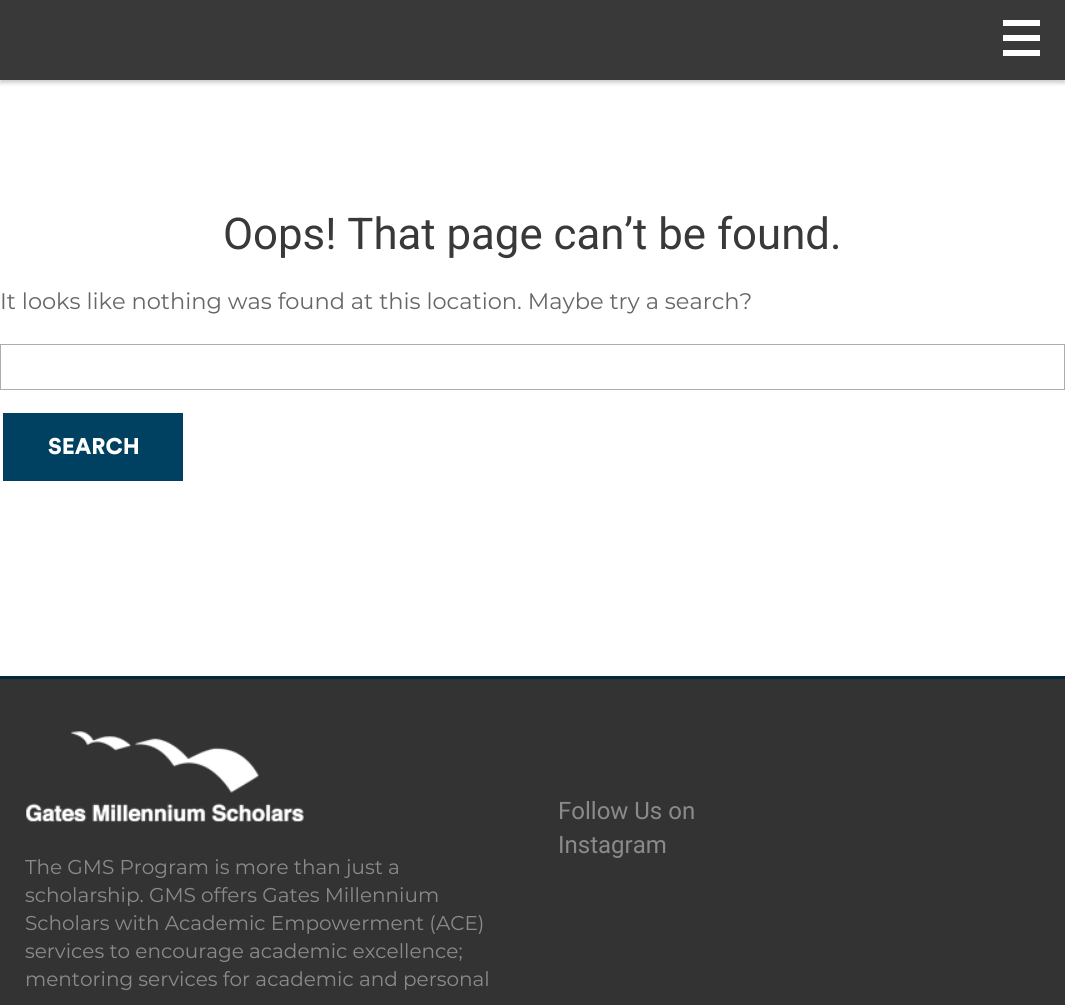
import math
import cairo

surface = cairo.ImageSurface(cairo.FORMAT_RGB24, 1065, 1005)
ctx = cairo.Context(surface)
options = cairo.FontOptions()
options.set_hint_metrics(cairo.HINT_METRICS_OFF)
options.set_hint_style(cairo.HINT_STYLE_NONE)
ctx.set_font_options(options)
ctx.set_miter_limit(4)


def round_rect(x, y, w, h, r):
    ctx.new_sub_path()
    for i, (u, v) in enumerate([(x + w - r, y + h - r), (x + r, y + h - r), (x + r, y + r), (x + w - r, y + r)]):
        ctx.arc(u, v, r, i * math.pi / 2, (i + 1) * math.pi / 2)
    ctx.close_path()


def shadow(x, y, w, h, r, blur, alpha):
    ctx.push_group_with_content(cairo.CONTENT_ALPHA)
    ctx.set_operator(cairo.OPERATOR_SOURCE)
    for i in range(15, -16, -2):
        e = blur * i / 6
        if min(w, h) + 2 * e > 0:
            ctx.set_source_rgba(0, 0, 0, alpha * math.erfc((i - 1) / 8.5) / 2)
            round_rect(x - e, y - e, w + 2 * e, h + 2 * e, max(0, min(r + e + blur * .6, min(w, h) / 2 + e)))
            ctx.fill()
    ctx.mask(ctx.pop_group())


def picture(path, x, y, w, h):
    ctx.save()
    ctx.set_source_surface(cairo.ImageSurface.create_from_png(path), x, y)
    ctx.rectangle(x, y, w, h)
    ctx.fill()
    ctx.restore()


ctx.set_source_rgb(0.2, 0.2, 0.2)
ctx.paint()
ctx.set_source_rgb(1, 1, 1)
ctx.rectangle(0, 80, 1065, 596)
ctx.fill()
ctx.set_source_rgb(0, 0, 0)
shadow(0, 3, 1065, 80, 0, 2, 0.2)
ctx.set_source_rgb(0.224, 0.224, 0.224)
ctx.rectangle(0, 0, 1065, 80)
ctx.fill()
ctx.set_source_rgb(1, 1, 1)
ctx.rectangle(1003, 35, 37, 6)
ctx.fill()
ctx.rectangle(1003, 20, 37, 6)
ctx.fill()
ctx.rectangle(1003, 50, 37, 6)
ctx.fill()
ctx.select_font_face("Roboto")
ctx.set_font_size(43.75)
ctx.set_source_rgb(0.224, 0.224, 0.224)
ctx.move_to(223, 249)
ctx.show_text("Oops! That page can’t be found.")
ctx.select_font_face("Montserrat")
ctx.set_font_size(22.5)
ctx.set_source_rgb(0.4, 0.4, 0.4)
ctx.move_to(0, 309)
ctx.show_text("It looks like nothing was found at this location. Maybe try a search?")
ctx.rectangle(0.5, 344.5, 1064, 45)
ctx.set_source_rgb(0.678, 0.678, 0.678)
ctx.set_line_width(1)
ctx.stroke()
ctx.set_source_rgb(0, 0.251, 0.38)
ctx.rectangle(3, 413, 180, 68)
ctx.fill()
ctx.select_font_face("Circular Black")
ctx.set_source_rgb(1, 1, 1)
ctx.move_to(48, 454)
ctx.show_text("SEARCH")
ctx.set_source_rgb(0.004, 0.157, 0.235)
ctx.rectangle(0, 676, 1065, 3)
ctx.fill()
ctx.select_font_face("Roboto")
ctx.set_font_size(24)
ctx.set_source_rgb(0.549, 0.537, 0.537)
ctx.move_to(558, 819)
ctx.show_text("Follow Us on")
ctx.move_to(558, 853)
ctx.show_text("Instagram")
picture("img1.png", 26, 731, 278, 91)
ctx.select_font_face("Montserrat")
ctx.set_font_size(20)
ctx.move_to(25, 874)
ctx.show_text("The GMS Program is more than just a")
ctx.move_to(25, 902)
ctx.show_text("scholarship. GMS offers Gates Millennium")
ctx.move_to(25, 930)
ctx.show_text("Scholars with Academic Empowerment (ACE)")
ctx.move_to(25, 958)
ctx.show_text("services to encourage academic excellence;")
ctx.move_to(25, 986)
ctx.show_text("mentoring services for academic and personal")
surface.write_to_png("page.png")
